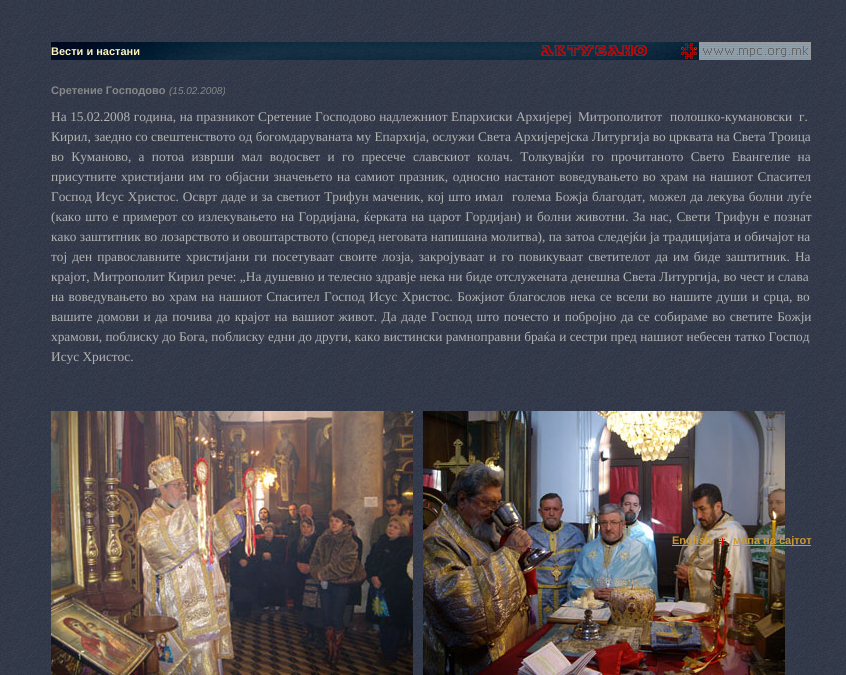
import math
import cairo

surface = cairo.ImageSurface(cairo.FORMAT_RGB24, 846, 675)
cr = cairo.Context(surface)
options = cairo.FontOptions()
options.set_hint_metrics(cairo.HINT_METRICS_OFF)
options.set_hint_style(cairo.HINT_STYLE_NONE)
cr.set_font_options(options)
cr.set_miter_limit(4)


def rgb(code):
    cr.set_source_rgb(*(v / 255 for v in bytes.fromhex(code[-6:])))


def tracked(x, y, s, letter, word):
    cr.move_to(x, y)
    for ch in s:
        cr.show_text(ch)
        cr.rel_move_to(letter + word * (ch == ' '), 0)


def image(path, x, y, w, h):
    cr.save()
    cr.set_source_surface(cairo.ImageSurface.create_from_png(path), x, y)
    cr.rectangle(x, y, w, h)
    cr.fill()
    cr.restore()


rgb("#ffffff")
cr.paint()
image("img/1.png", 0, 0, 846, 675)
image("img/2.png", 51, 42, 648, 18)
image("img/3.png", 541, 45, 106, 11)
image("img/4.png", 681, 43, 16, 16)
image("img/5.png", 699, 42, 112, 18)
image("img/6.png", 51, 411, 362, 264)
image("img/7.png", 423, 411, 362, 264)
rgb("#cc9933")
cr.rectangle(672, 545, 39, 1)
cr.fill()
image("img/8.png", 719, 538, 7, 8)
cr.rectangle(733, 545, 78, 1)
cr.fill()
cr.select_font_face("Liberation Sans", cairo.FONT_SLANT_NORMAL, cairo.FONT_WEIGHT_BOLD)
cr.set_font_size(11)
rgb("#fff4bf")
cr.move_to(51, 55)
cr.show_text("Вести и настани")
rgb("#888888")
cr.move_to(51, 94)
cr.show_text("Сретение Господово")
cr.select_font_face("Liberation Sans", cairo.FONT_SLANT_ITALIC)
cr.set_font_size(10)
cr.move_to(169, 94)
cr.show_text("(15.02.2008)")
cr.select_font_face("Liberation Serif")
cr.set_font_size(13.33)
rgb("#b2b2b2")
tracked(51, 121, "На 15.02.2008 година, на празникот Сретение Господово надлежниот Епархиски Архијереј", 0, 0.25)
for x, y, s in [
    (578, 121, "Митрополитот"),
    (670, 121, "полошко-кумановски"),
    (799, 121, "г."),
    (51, 141, "Кирил, заедно со свештенството од богомдаруваната му Епархија, ослужи Света Архијерејска Литургија во црквата на Света Троица"),
]:
    cr.move_to(x, y)
    cr.show_text(s)
tracked(51, 161, "во Куманово, а потоа изврши мал водосвет и го пресече славскиот колач. Толкувајќи го прочитаното Свето Евангелие на", 0, 4)
tracked(51, 181, "присутните христијани им го објасни значењето на самиот празник, односно настанот воведувањето во храм на нашиот Спасител", 0, 1.25)
tracked(51, 201, "Господ Исус Христос. Осврт даде и за светиот Трифун маченик, кој што имал", 0, 0.6)
tracked(512, 201, "голема Божја благодат, можел да лекува болни луѓе", 0, 0.6)
tracked(51, 221, "(како што е примерот со излекувањето на Гордијана, ќерката на царот Гордијан) и болни животни. За нас, Свети Трифун е познат", 0, 1)
cr.move_to(51, 241)
cr.show_text("како заштитник во лозарството и овоштарството (според неговата напишана молитва), па затоа следејќи ја традицијата и обичајот на")
tracked(51, 261, "тој ден православните христијани ги посетуваат своите лозја, закројуваат и го повикуваат светителот да им биде заштитник. На", 0, 1.8)
cr.move_to(51, 281)
cr.show_text("крајот, Митрополит Кирил рече: „На душевно и телесно здравје нека ни биде отслужената денешна Света Литургија, во чест и слава")
tracked(51, 301, "на воведувањето во храм на нашиот Спасител Господ Исус Христос. Божјиот благослов нека се всели во нашите души и срца, во", 0, 1.1)
tracked(51, 321, "вашите домови и да почива до крајот на вашиот живот. Да даде Господ што почесто и побројно да се собираме во светите Божји", 0, 1.2)
cr.move_to(51, 341)
cr.show_text("храмови, поблиску до Бога, поблиску едни до други, како вистински рамноправни браќа и сестри пред нашиот небесен татко Господ")
cr.move_to(51, 361)
cr.show_text("Исус Христос.")
cr.select_font_face("Liberation Sans", cairo.FONT_SLANT_NORMAL, cairo.FONT_WEIGHT_BOLD)
cr.set_font_size(11)
rgb("#cc9933")
cr.move_to(672, 544)
cr.show_text("English")
cr.move_to(733, 544)
cr.show_text("мапа на сајтот")
surface.write_to_png("page.png")
